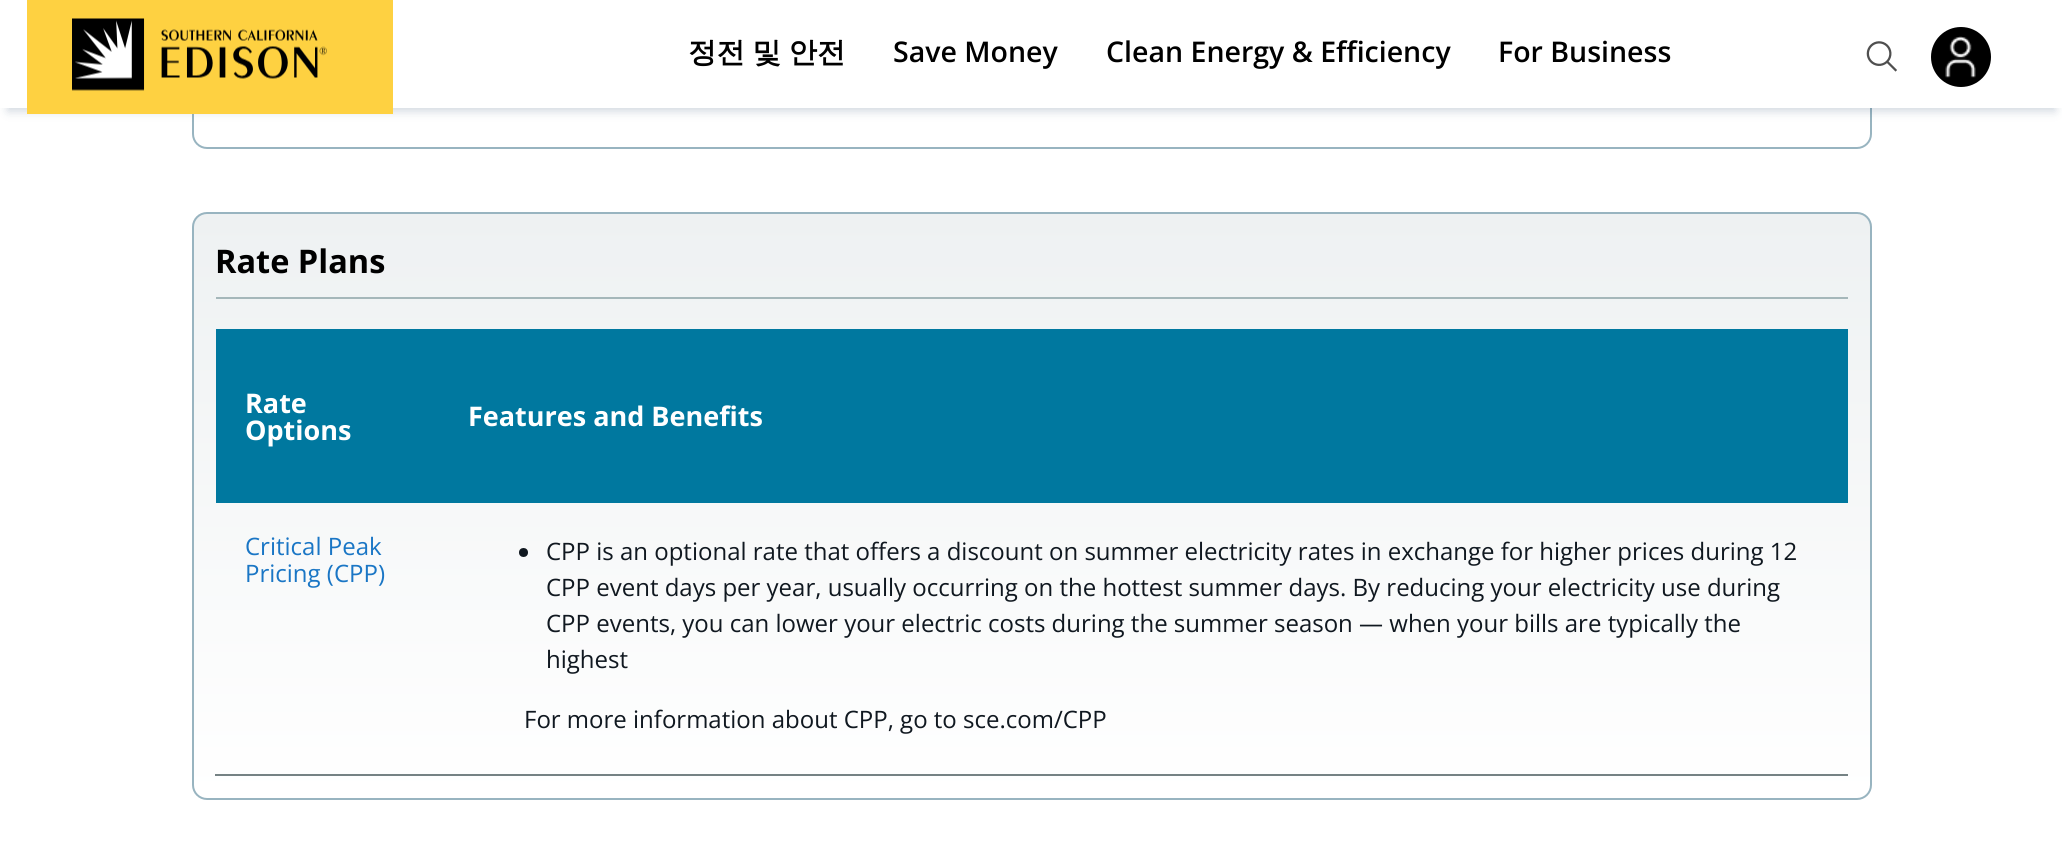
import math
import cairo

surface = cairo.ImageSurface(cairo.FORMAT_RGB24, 2062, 841)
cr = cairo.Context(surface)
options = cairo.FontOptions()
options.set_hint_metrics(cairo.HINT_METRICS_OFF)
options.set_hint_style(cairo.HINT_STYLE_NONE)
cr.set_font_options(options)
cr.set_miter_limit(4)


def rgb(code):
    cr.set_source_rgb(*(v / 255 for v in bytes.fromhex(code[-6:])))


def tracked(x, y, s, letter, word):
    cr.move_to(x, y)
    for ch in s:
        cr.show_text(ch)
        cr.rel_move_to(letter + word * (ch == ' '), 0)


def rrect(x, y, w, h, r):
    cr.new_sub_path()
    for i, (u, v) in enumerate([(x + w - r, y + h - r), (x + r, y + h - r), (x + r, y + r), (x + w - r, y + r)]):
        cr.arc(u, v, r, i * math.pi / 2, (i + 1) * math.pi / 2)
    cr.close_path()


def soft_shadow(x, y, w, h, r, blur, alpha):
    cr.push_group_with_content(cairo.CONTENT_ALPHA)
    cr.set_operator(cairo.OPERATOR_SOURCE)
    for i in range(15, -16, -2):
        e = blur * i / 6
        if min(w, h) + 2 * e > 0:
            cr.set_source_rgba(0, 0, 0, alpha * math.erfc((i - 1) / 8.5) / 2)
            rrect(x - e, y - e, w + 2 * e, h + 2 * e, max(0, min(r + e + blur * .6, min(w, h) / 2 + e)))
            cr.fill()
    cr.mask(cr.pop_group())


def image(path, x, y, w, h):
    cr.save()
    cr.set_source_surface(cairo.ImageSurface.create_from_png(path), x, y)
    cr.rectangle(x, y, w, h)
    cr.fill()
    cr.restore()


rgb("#ffffff")
cr.paint()
rrect(193, -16, 1678, 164, 14)
rgb("#98b4c0")
cr.stroke()
rgb("#0d305b")
soft_shadow(8, 18, 2047, 93, 0, 5, 0.2)
rgb("#ffffff")
cr.rectangle(0, 0, 2062, 108)
cr.fill()
rgb("#fed141")
cr.rectangle(27, 0, 366, 114)
cr.fill()
image("img/1.png", 72, 18, 255, 73)
image("img/2.png", 1866, 41, 31, 31)
rgb("#000000")
cr.arc(1961, 57, 30, 0, 2 * math.pi)
cr.fill()
image("img/3.png", 1945, 36, 31, 42)
cr.save()
rrect(192, 212, 1680, 588, 15)
cr.clip()
gradient = cairo.LinearGradient(1032, 213, 1032, 798)
gradient.add_color_stop_rgba(0, 0.933, 0.945, 0.949, 1)
gradient.add_color_stop_rgba(1, 1, 1, 1, 1)
cr.set_source(gradient)
cr.rectangle(192, 213, 1680, 585)
cr.fill()
cr.restore()
rrect(193, 213, 1678, 586, 14)
rgb("#98b4c0")
cr.stroke()
for x, y, w, h, color in [
    (216, 297, 1632, 2, "#a5b7ba"),
    (216, 329, 1632, 174, "#00789f"),
    (215, 774, 1633, 2, "#758284"),
]:
    rgb(color)
    cr.rectangle(x, y, w, h)
    cr.fill()
rgb("#101820")
cr.arc(523.5, 552.5, 4.5, 0, 2 * math.pi)
cr.fill()
cr.select_font_face("WenQuanYi Zen Hei", cairo.FONT_SLANT_NORMAL, cairo.FONT_WEIGHT_BOLD)
cr.set_font_size(28.5)
rgb("#000000")
tracked(688, 62, "정전 및 안전", 0, -1)
cr.select_font_face("Open Sans SemiBold")
for x, y, s in [
    (893, 62, "Save Money"),
    (1106, 62, "Clean Energy & Efficiency"),
    (1498, 62, "For Business"),
]:
    cr.move_to(x, y)
    cr.show_text(s)
cr.select_font_face("Open Sans", cairo.FONT_SLANT_NORMAL, cairo.FONT_WEIGHT_BOLD)
cr.set_font_size(32.5)
cr.move_to(215, 273)
cr.show_text("Rate Plans")
cr.set_font_size(27)
rgb("#ffffff")
for x, y, s in [
    (245, 413, "Rate"),
    (245, 440, "Options"),
    (468, 426, "Features and Benefits"),
]:
    cr.move_to(x, y)
    cr.show_text(s)
cr.select_font_face("Open Sans")
cr.set_font_size(24)
rgb("#1a76c5")
cr.move_to(245, 555)
cr.show_text("Critical Peak")
cr.move_to(245, 582)
cr.show_text("Pricing (CPP)")
rgb("#101820")
for x, y, s in [
    (546, 560, "CPP is an optional rate that offers a discount on summer electricity rates in exchange for higher prices during 12"),
    (546, 596, "CPP event days per year, usually occurring on the hottest summer days. By reducing your electricity use during"),
    (546, 632, "CPP events, you can lower your electric costs during the summer season — when your bills are typically the"),
    (546, 668, "highest"),
    (524, 728, "For more information about CPP, go to sce.com/CPP"),
]:
    cr.move_to(x, y)
    cr.show_text(s)
surface.write_to_png("page.png")
